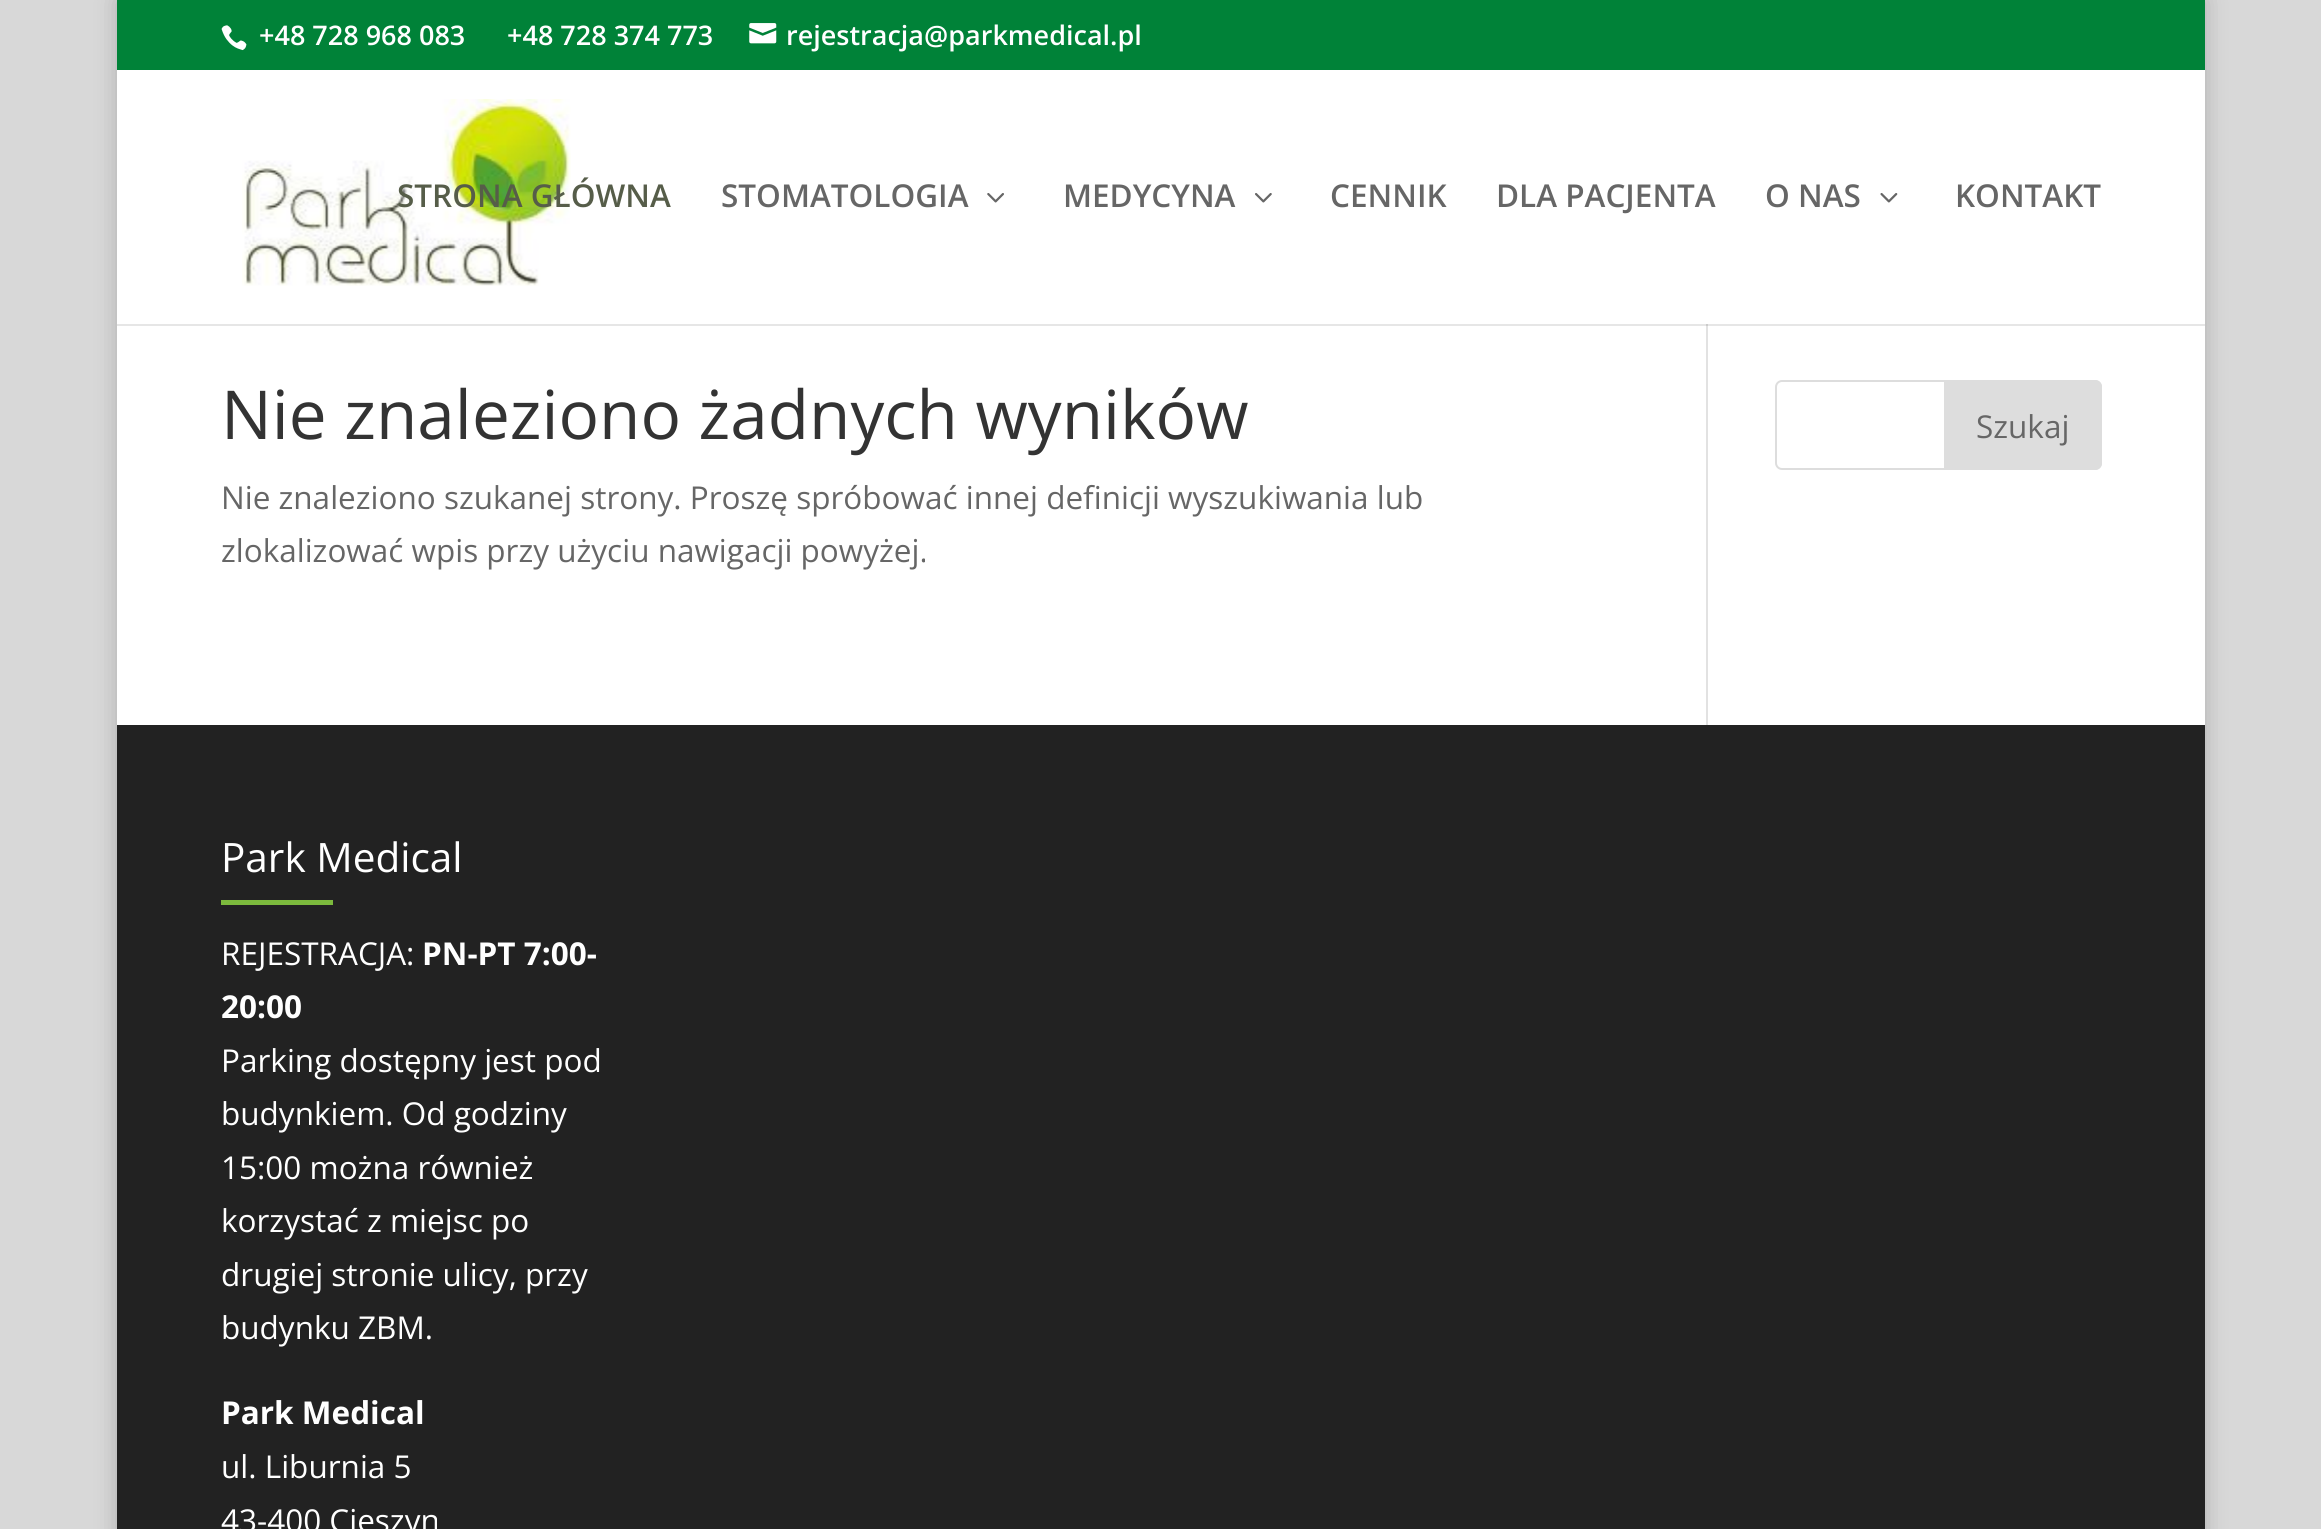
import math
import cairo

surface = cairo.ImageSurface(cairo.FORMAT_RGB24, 2321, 1529)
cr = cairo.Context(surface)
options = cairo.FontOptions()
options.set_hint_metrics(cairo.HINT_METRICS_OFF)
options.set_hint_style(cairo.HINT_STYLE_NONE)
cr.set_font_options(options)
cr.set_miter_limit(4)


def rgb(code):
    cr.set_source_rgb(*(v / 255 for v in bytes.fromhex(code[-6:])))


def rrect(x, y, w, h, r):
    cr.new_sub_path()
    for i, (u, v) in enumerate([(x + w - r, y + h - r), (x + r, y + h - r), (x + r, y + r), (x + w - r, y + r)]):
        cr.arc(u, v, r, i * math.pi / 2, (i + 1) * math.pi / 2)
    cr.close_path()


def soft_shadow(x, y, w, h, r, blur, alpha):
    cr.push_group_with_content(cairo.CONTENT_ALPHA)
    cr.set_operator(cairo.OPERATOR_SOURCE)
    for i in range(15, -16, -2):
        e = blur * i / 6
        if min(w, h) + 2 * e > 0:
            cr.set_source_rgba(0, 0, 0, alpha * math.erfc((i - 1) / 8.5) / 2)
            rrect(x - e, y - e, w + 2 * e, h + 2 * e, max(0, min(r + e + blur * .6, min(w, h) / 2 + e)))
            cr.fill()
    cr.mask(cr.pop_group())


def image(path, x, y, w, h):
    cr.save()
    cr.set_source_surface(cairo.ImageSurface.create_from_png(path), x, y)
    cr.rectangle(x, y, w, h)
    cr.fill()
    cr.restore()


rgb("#d8d8d8")
cr.paint()
rgb("#000000")
soft_shadow(117, 0, 2088, 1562, 0, 11, 0.2)
rgb("#008238")
cr.rectangle(117, 0, 2088, 70)
cr.fill()
image("img/1.png", 221, 25, 26, 26)
image("img/2.png", 749, 23, 28, 21)
rgb("#ffffff")
cr.rectangle(117, 70, 2088, 254)
cr.fill()
image("img/3.png", 242, 99, 329, 187)
image("img/4.png", 987, 193, 17, 10)
image("img/5.png", 1255, 193, 17, 10)
image("img/6.png", 1880, 193, 18, 10)
for x, y, w, h, color in [
    (117, 326, 2088, 399, "#ffffff"),
    (117, 324, 2088, 2, "#e6e6e6"),
    (1706, 326, 2, 399, "#e2e2e2"),
    (1706, 324, 2, 2, "#cbcbcb"),
]:
    rgb(color)
    cr.rectangle(x, y, w, h)
    cr.fill()
rrect(1776, 381, 325, 88, 6)
rgb("#dddddd")
cr.stroke()
cr.new_path()
cr.move_to(1945, 381)
cr.line_to(2095, 381)
cr.curve_to(2098.5, 381, 2101, 383.5, 2101, 387)
cr.line_to(2101, 463)
cr.curve_to(2101, 466.5, 2098.5, 469, 2095, 469)
cr.line_to(1945, 469)
cr.close_path()
cr.fill_preserve()
cr.stroke()
rgb("#222222")
cr.rectangle(117, 725, 2088, 804)
cr.fill()
rgb("#7cba3d")
cr.rectangle(221, 900, 112, 5)
cr.fill()
cr.select_font_face("Open Sans SemiBold")
cr.set_font_size(27)
rgb("#ffffff")
for x, y, s in [
    (259, 45, "+48 728 968 083"),
    (507, 45, "+48 728 374 773"),
    (786, 45, "rejestracja@parkmedical.pl"),
]:
    cr.move_to(x, y)
    cr.show_text(s)
cr.set_font_size(31.5)
rgb("#565d49")
cr.move_to(397, 207)
cr.show_text("STRONA GŁÓWNA")
rgb("#666666")
for x, y, s in [
    (721, 207, "STOMATOLOGIA"),
    (1063, 207, "MEDYCYNA"),
    (1330, 207, "CENNIK"),
    (1496, 207, "DLA PACJENTA"),
    (1765, 207, "O NAS"),
    (1955, 207, "KONTAKT"),
]:
    cr.move_to(x, y)
    cr.show_text(s)
cr.select_font_face("Open Sans")
cr.set_font_size(67.5)
rgb("#333333")
cr.move_to(221, 439)
cr.show_text("Nie znaleziono żadnych wyników")
cr.set_font_size(31.5)
rgb("#666666")
for x, y, s in [
    (221, 509, "Nie znaleziono szukanej strony. Proszę spróbować innej definicji wyszukiwania lub"),
    (221, 562, "zlokalizować wpis przy użyciu nawigacji powyżej."),
    (1976, 438, "Szukaj"),
]:
    cr.move_to(x, y)
    cr.show_text(s)
cr.set_font_size(40.5)
rgb("#ffffff")
cr.move_to(221, 872)
cr.show_text("Park Medical")
cr.set_font_size(31.5)
cr.move_to(221, 965)
cr.show_text("REJESTRACJA:")
cr.select_font_face("Open Sans", cairo.FONT_SLANT_NORMAL, cairo.FONT_WEIGHT_BOLD)
cr.move_to(422, 965)
cr.show_text("PN-PT 7:00-")
cr.move_to(221, 1018)
cr.show_text("20:00")
cr.select_font_face("Open Sans")
for x, y, s in [
    (221, 1072, "Parking dostępny jest pod"),
    (221, 1125, "budynkiem. Od godziny"),
    (221, 1179, "15:00 można również"),
    (221, 1232, "korzystać z miejsc po"),
    (221, 1286, "drugiej stronie ulicy, przy"),
    (221, 1339, "budynku ZBM."),
]:
    cr.move_to(x, y)
    cr.show_text(s)
cr.select_font_face("Open Sans", cairo.FONT_SLANT_NORMAL, cairo.FONT_WEIGHT_BOLD)
cr.move_to(221, 1424)
cr.show_text("Park Medical")
cr.select_font_face("Open Sans")
cr.move_to(221, 1478)
cr.show_text("ul. Liburnia 5")
cr.move_to(221, 1532)
cr.show_text("43-400 Cieszyn")
surface.write_to_png("page.png")
